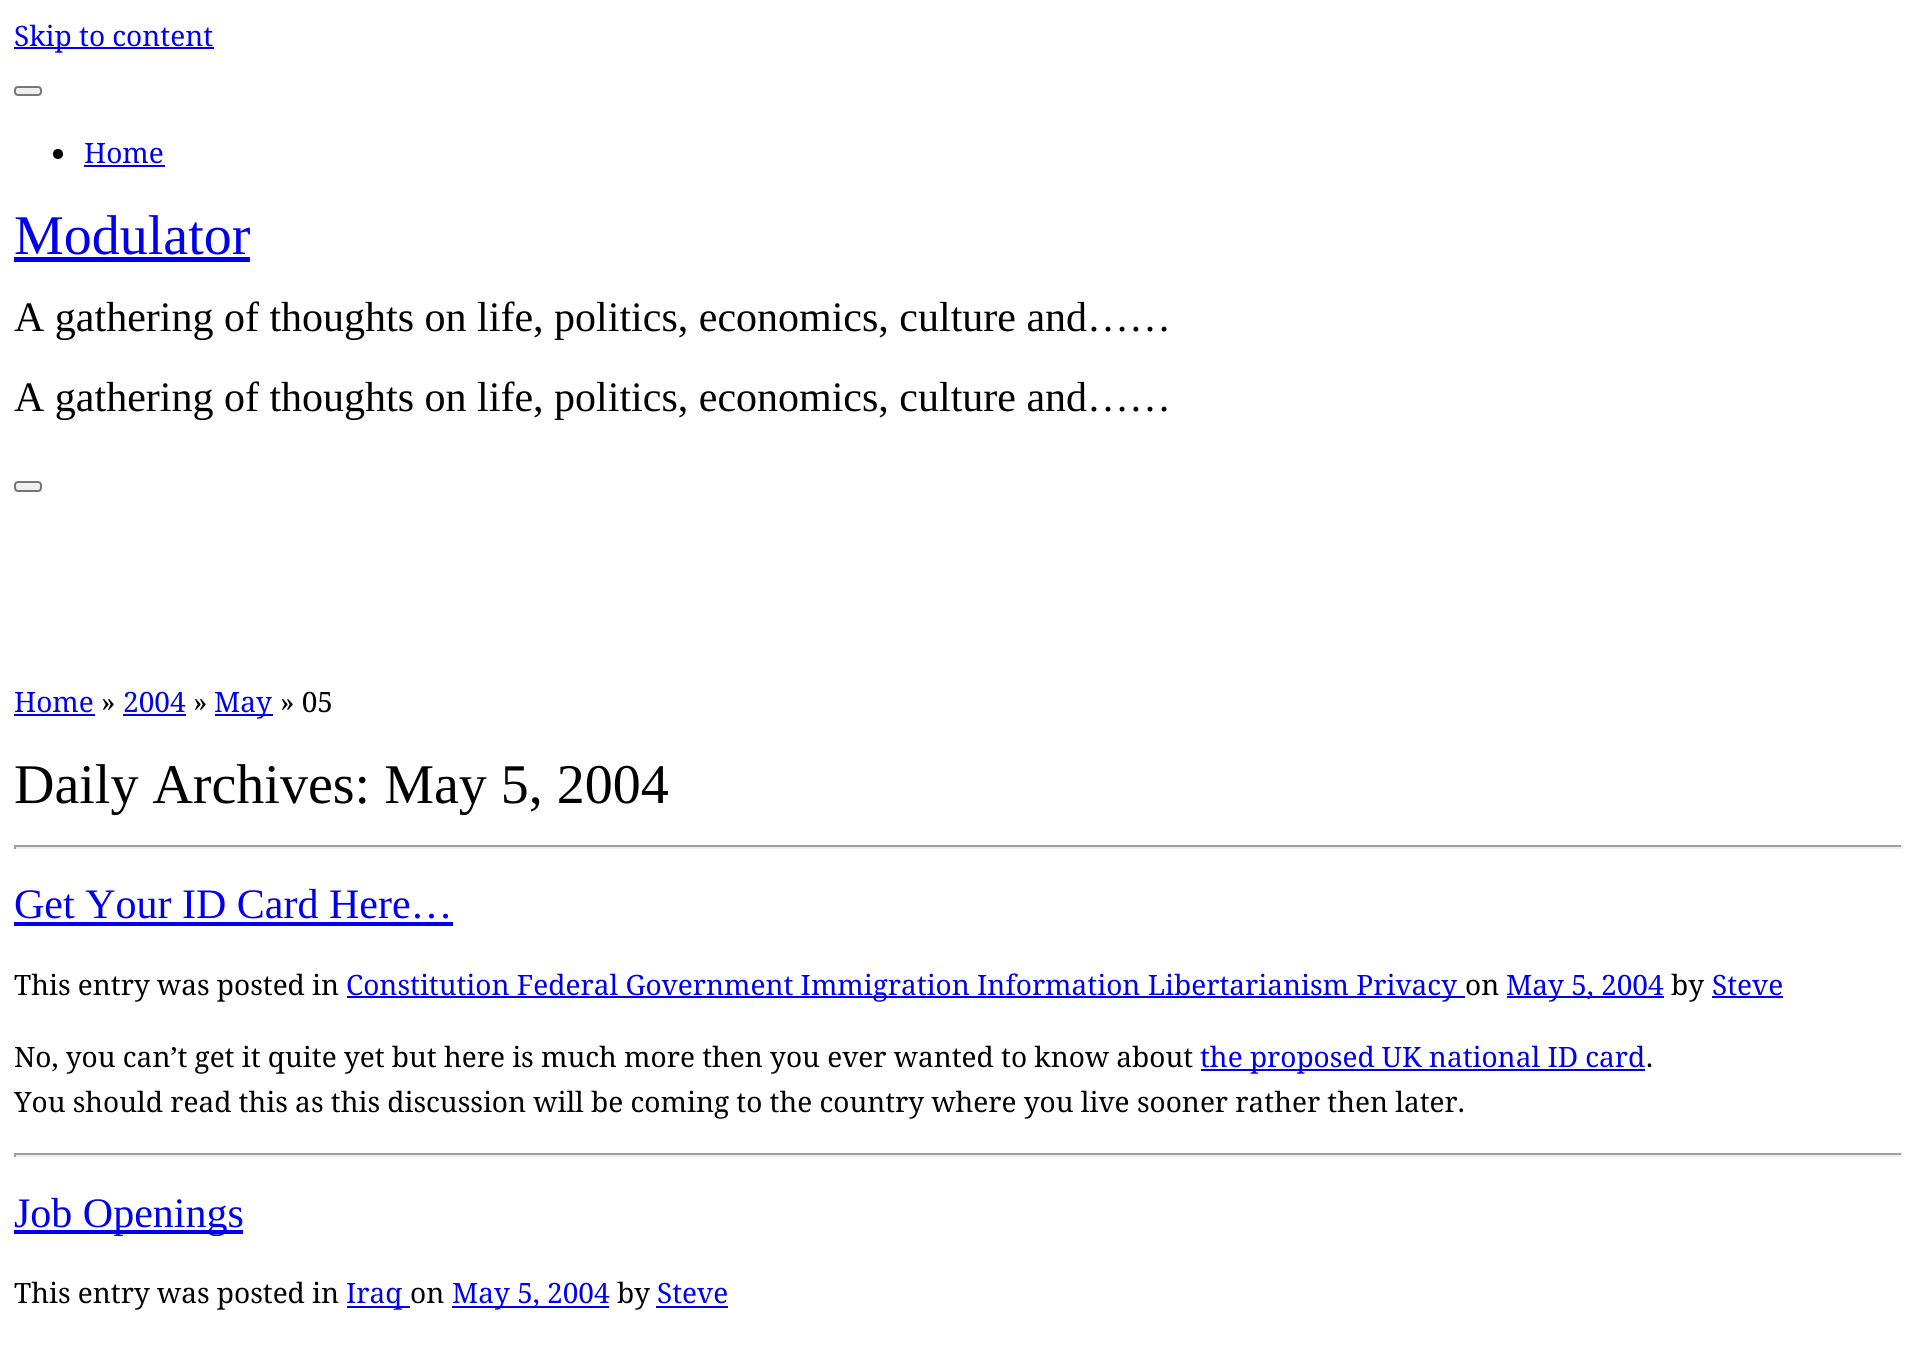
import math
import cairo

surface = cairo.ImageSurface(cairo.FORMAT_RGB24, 1915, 1369)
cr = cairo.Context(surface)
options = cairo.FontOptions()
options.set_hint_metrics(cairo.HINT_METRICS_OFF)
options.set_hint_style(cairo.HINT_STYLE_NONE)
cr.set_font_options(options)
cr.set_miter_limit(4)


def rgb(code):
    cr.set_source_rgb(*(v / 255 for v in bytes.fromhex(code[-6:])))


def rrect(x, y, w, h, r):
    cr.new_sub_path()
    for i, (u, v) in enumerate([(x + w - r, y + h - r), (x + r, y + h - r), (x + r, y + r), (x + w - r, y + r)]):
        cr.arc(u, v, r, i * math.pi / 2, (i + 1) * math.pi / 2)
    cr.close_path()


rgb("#ffffff")
cr.paint()
rgb("#0000ee")
cr.rectangle(14, 47, 200, 2)
cr.fill()
rgb("#efefef")
rrect(15, 87, 26, 8, 3)
cr.fill_preserve()
rgb("#767676")
cr.stroke()
rgb("#000000")
cr.arc(58, 154, 5, 0, 2 * math.pi)
cr.fill()
rgb("#0000ee")
cr.rectangle(84, 165, 81, 2)
cr.fill()
cr.rectangle(14, 257, 236, 5)
cr.fill()
rgb("#efefef")
rrect(15, 482, 26, 9, 3)
cr.fill_preserve()
rgb("#767676")
cr.stroke()
for x, y, w, h, color in [
    (14, 714, 81, 2, "#0000ee"),
    (123, 714, 63, 2, "#0000ee"),
    (215, 714, 58, 2, "#0000ee"),
    (14, 845, 1888, 2, "#9f9f9f"),
    (1901, 845, 2, 4, "#eeeeee"),
    (14, 847, 1888, 2, "#eeeeee"),
    (14, 845, 2, 4, "#9f9f9f"),
    (14, 922, 439, 4, "#0000ee"),
    (347, 996, 1118, 2, "#0000ee"),
    (1507, 996, 157, 2, "#0000ee"),
    (1712, 996, 71, 2, "#0000ee"),
    (1201, 1069, 444, 2, "#0000ee"),
    (14, 1153, 1888, 2, "#9f9f9f"),
    (1901, 1153, 2, 4, "#eeeeee"),
    (14, 1155, 1888, 2, "#eeeeee"),
    (14, 1153, 2, 4, "#9f9f9f"),
    (14, 1230, 229, 4, "#0000ee"),
    (347, 1306, 63, 2, "#0000ee"),
    (452, 1306, 157, 2, "#0000ee"),
    (656, 1306, 72, 2, "#0000ee"),
]:
    rgb(color)
    cr.rectangle(x, y, w, h)
    cr.fill()
cr.select_font_face("Noto Serif")
cr.set_font_size(28)
cr.move_to(14, 46)
cr.show_text("Skip to content")
cr.move_to(84, 163)
cr.show_text("Home")
cr.select_font_face("Liberation Serif")
cr.set_font_size(56)
cr.move_to(14, 254)
cr.show_text("Modulator")
cr.set_font_size(42)
rgb("#000000")
cr.move_to(14, 331)
cr.show_text("A gathering of thoughts on life, politics, economics, culture and……")
cr.move_to(14, 411)
cr.show_text("A gathering of thoughts on life, politics, economics, culture and……")
cr.select_font_face("Noto Serif")
cr.set_font_size(28)
rgb("#0000ee")
cr.move_to(14, 712)
cr.show_text("Home")
rgb("#000000")
cr.move_to(101, 712)
cr.show_text("»")
rgb("#0000ee")
cr.move_to(123, 712)
cr.show_text("2004")
rgb("#000000")
cr.move_to(193, 712)
cr.show_text("»")
rgb("#0000ee")
cr.move_to(214, 712)
cr.show_text("May")
rgb("#000000")
cr.move_to(280, 712)
cr.show_text("» 05")
cr.select_font_face("Liberation Serif")
cr.set_font_size(56)
cr.move_to(14, 803)
cr.show_text("Daily Archives: May 5, 2004")
cr.set_font_size(42)
rgb("#0000ee")
cr.move_to(14, 918)
cr.show_text("Get Your ID Card Here…")
cr.select_font_face("Noto Serif")
cr.set_font_size(28)
rgb("#000000")
cr.move_to(14, 995)
cr.show_text("This entry was posted in")
rgb("#0000ee")
cr.move_to(346, 995)
cr.show_text("Constitution Federal Government Immigration Information Libertarianism Privacy")
rgb("#000000")
cr.move_to(1465, 995)
cr.show_text("on")
rgb("#0000ee")
cr.move_to(1506, 995)
cr.show_text("May 5, 2004")
rgb("#000000")
cr.move_to(1671, 995)
cr.show_text("by")
rgb("#0000ee")
cr.move_to(1712, 995)
cr.show_text("Steve")
rgb("#000000")
cr.move_to(14, 1067)
cr.show_text("No, you can’t get it quite yet but here is much more then you ever wanted to know about")
rgb("#0000ee")
cr.move_to(1200, 1067)
cr.show_text("the proposed UK national ID card")
rgb("#000000")
cr.move_to(1646, 1067)
cr.show_text(".")
cr.move_to(14, 1112)
cr.show_text("You should read this as this discussion will be coming to the country where you live sooner rather then later.")
cr.select_font_face("Liberation Serif")
cr.set_font_size(42)
rgb("#0000ee")
cr.move_to(14, 1227)
cr.show_text("Job Openings")
cr.select_font_face("Noto Serif")
cr.set_font_size(28)
rgb("#000000")
cr.move_to(14, 1303)
cr.show_text("This entry was posted in")
rgb("#0000ee")
cr.move_to(346, 1303)
cr.show_text("Iraq")
rgb("#000000")
cr.move_to(410, 1303)
cr.show_text("on")
rgb("#0000ee")
cr.move_to(452, 1303)
cr.show_text("May 5, 2004")
rgb("#000000")
cr.move_to(617, 1303)
cr.show_text("by")
rgb("#0000ee")
cr.move_to(657, 1303)
cr.show_text("Steve")
surface.write_to_png("page.png")
